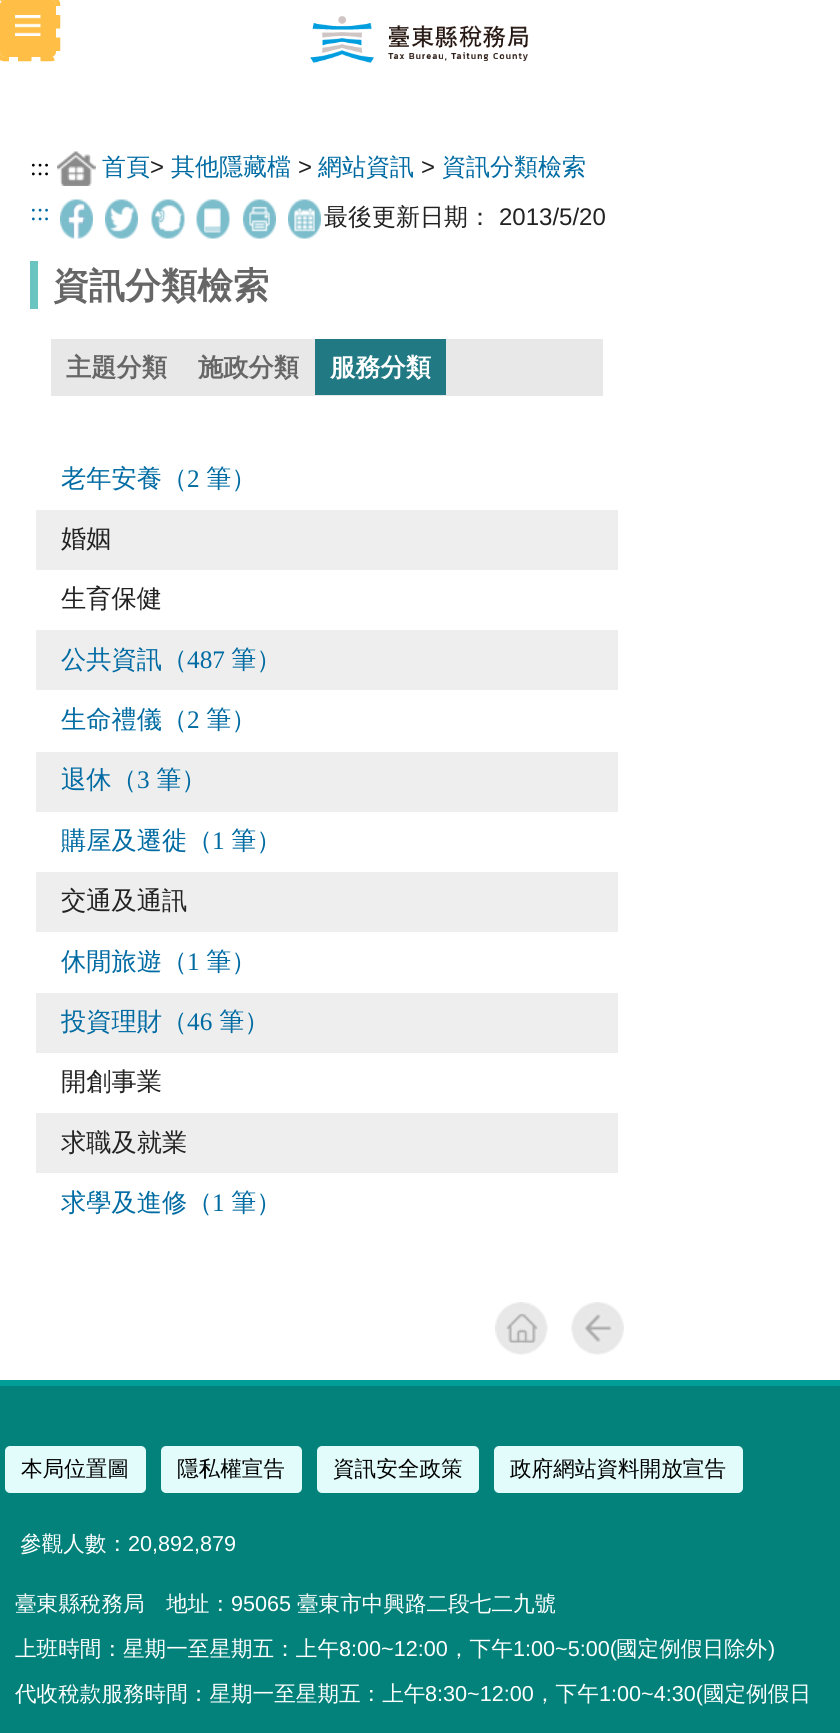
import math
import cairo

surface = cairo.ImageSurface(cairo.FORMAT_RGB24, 840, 1733)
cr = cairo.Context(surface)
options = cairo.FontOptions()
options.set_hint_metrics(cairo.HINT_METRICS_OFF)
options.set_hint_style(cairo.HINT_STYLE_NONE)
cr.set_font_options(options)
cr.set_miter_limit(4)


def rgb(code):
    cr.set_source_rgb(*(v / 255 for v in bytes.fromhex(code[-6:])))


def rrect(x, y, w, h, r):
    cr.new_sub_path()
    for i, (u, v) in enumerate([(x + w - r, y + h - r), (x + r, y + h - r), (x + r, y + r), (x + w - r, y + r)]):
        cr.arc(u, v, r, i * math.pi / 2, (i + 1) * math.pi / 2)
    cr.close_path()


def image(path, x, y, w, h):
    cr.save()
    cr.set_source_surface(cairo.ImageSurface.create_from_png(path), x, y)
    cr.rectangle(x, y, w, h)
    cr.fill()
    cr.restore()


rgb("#ffffff")
cr.paint()
rgb("#ffbf47")
rrect(1, 1, 54, 55, 4)
cr.fill_preserve()
cr.stroke()
image("img/1.png", 15, 15, 26, 21)
cr.new_path()
cr.move_to(4.5, -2)
cr.line_to(51, -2)
cr.curve_to(54.5, -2, 58, 1, 58, 4.5)
cr.line_to(58, 52.5)
cr.curve_to(58, 56, 54.5, 59, 51, 59)
cr.line_to(4.5, 59)
cr.curve_to(1, 59, -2, 56, -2, 52.5)
cr.line_to(-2, 4.5)
cr.curve_to(-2, 1, 1, -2, 4.5, -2)
cr.close_path()
cr.set_line_width(4.5)
cr.set_dash([13.5, 9])
cr.stroke()
image("img/2.png", 310, 15, 219, 48)
image("img/3.png", 57, 151, 39, 35)
image("img/4.png", 60, 199, 33, 40)
image("img/5.png", 105, 199, 33, 40)
image("img/6.png", 151, 199, 34, 40)
image("img/7.png", 196, 199, 34, 40)
image("img/8.png", 243, 199, 33, 40)
image("img/9.png", 288, 199, 33, 40)
for x, y, w, h, color in [
    (30, 261, 8, 48, "#6ac5c0"),
    (51, 339, 552, 57, "#e8e8e8"),
    (315, 339, 131, 56, "#217983"),
    (36, 510, 582, 60, "#eeeeee"),
    (36, 630, 582, 60, "#eeeeee"),
    (36, 752, 582, 60, "#eeeeee"),
    (36, 872, 582, 60, "#eeeeee"),
    (36, 993, 582, 60, "#eeeeee"),
    (36, 1113, 582, 60, "#eeeeee"),
]:
    rgb(color)
    cr.rectangle(x, y, w, h)
    cr.fill()
image("img/10.png", 495, 1302, 53, 53)
image("img/11.png", 571, 1302, 53, 53)
rgb("#009e96")
cr.rectangle(0, 1380, 840, 6)
cr.fill()
rgb("#02827b")
cr.rectangle(0, 1386, 840, 347)
cr.fill()
rgb("#e2fcfb")
rrect(6, 1447, 139, 45, 4)
cr.fill_preserve()
cr.set_line_width(2)
cr.set_dash([])
cr.stroke()
rrect(162, 1447, 139, 45, 4)
cr.fill_preserve()
cr.stroke()
rrect(318, 1447, 160, 45, 4)
cr.fill_preserve()
cr.stroke()
rrect(495, 1447, 247, 45, 4)
cr.fill_preserve()
cr.stroke()
cr.select_font_face("Liberation Serif")
cr.set_font_size(24)
rgb("#000000")
cr.move_to(30, 175)
cr.show_text(":::")
cr.select_font_face("WenQuanYi Zen Hei Medium")
rgb("#006ba2")
cr.move_to(102, 175)
cr.show_text("首頁")
cr.select_font_face("Liberation Sans")
rgb("#222222")
cr.move_to(150, 175)
cr.show_text(">")
cr.select_font_face("WenQuanYi Zen Hei Medium")
rgb("#006ba2")
cr.move_to(171, 175)
cr.show_text("其他隱藏檔")
cr.select_font_face("Liberation Sans")
rgb("#222222")
cr.move_to(298, 175)
cr.show_text(">")
cr.select_font_face("WenQuanYi Zen Hei Medium")
rgb("#006ba2")
cr.move_to(318, 175)
cr.show_text("網站資訊")
cr.select_font_face("Liberation Sans")
rgb("#222222")
cr.move_to(421, 175)
cr.show_text(">")
cr.select_font_face("WenQuanYi Zen Hei Medium")
rgb("#006ba2")
cr.move_to(442, 175)
cr.show_text("資訊分類檢索")
cr.select_font_face("Liberation Serif")
cr.move_to(30, 220)
cr.show_text(":::")
cr.select_font_face("WenQuanYi Zen Hei Medium")
rgb("#222222")
cr.move_to(324, 225)
cr.show_text("最後更新日期：")
cr.select_font_face("Liberation Sans")
cr.move_to(499, 225)
cr.show_text("2013/5/20")
cr.select_font_face("WenQuanYi Zen Hei", cairo.FONT_SLANT_NORMAL, cairo.FONT_WEIGHT_BOLD)
cr.set_font_size(36)
rgb("#666666")
cr.move_to(53, 298)
cr.show_text("資訊分類檢索")
cr.set_font_size(25.25)
cr.move_to(66, 376)
cr.show_text("主題分類")
cr.move_to(198, 376)
cr.show_text("施政分類")
rgb("#ffffff")
cr.move_to(330, 376)
cr.show_text("服務分類")
cr.select_font_face("WenQuanYi Zen Hei Medium")
rgb("#006ba2")
cr.move_to(61, 487)
cr.show_text("老年安養（")
cr.select_font_face("Liberation Serif")
cr.move_to(187, 487)
cr.show_text("2")
cr.select_font_face("WenQuanYi Zen Hei Medium")
cr.move_to(206, 487)
cr.show_text("筆）")
rgb("#222222")
cr.move_to(61, 547)
cr.show_text("婚姻")
cr.move_to(61, 607)
cr.show_text("生育保健")
rgb("#006ba2")
cr.move_to(61, 668)
cr.show_text("公共資訊（")
cr.select_font_face("Liberation Serif")
cr.move_to(187, 668)
cr.show_text("487")
cr.select_font_face("WenQuanYi Zen Hei Medium")
cr.move_to(231, 668)
cr.show_text("筆）")
cr.move_to(61, 728)
cr.show_text("生命禮儀（")
cr.select_font_face("Liberation Serif")
cr.move_to(187, 728)
cr.show_text("2")
cr.select_font_face("WenQuanYi Zen Hei Medium")
cr.move_to(206, 728)
cr.show_text("筆）")
cr.move_to(61, 788)
cr.show_text("退休（")
cr.select_font_face("Liberation Serif")
cr.move_to(137, 788)
cr.show_text("3")
cr.select_font_face("WenQuanYi Zen Hei Medium")
cr.move_to(156, 788)
cr.show_text("筆）")
cr.move_to(61, 849)
cr.show_text("購屋及遷徙（")
cr.select_font_face("Liberation Serif")
cr.move_to(212, 849)
cr.show_text("1")
cr.select_font_face("WenQuanYi Zen Hei Medium")
cr.move_to(231, 849)
cr.show_text("筆）")
rgb("#222222")
cr.move_to(61, 909)
cr.show_text("交通及通訊")
rgb("#006ba2")
cr.move_to(61, 970)
cr.show_text("休閒旅遊（")
cr.select_font_face("Liberation Serif")
cr.move_to(187, 970)
cr.show_text("1")
cr.select_font_face("WenQuanYi Zen Hei Medium")
cr.move_to(206, 970)
cr.show_text("筆）")
cr.move_to(61, 1030)
cr.show_text("投資理財（")
cr.select_font_face("Liberation Serif")
cr.move_to(187, 1030)
cr.show_text("46")
cr.select_font_face("WenQuanYi Zen Hei Medium")
cr.move_to(219, 1030)
cr.show_text("筆）")
rgb("#222222")
cr.move_to(61, 1090)
cr.show_text("開創事業")
cr.move_to(61, 1151)
cr.show_text("求職及就業")
rgb("#006ba2")
cr.move_to(61, 1211)
cr.show_text("求學及進修（")
cr.select_font_face("Liberation Serif")
cr.move_to(212, 1211)
cr.show_text("1")
cr.select_font_face("WenQuanYi Zen Hei Medium")
cr.move_to(231, 1211)
cr.show_text("筆）")
cr.set_font_size(21.6)
rgb("#000000")
for x, y, s in [
    (21, 1476, "本局位置圖"),
    (177, 1476, "隱私權宣告"),
    (333, 1476, "資訊安全政策"),
    (510, 1476, "政府網站資料開放宣告"),
]:
    cr.move_to(x, y)
    cr.show_text(s)
rgb("#ffffff")
cr.move_to(20, 1551)
cr.show_text("參觀人數：")
cr.select_font_face("Liberation Sans")
cr.move_to(128, 1551)
cr.show_text("20,892,879")
cr.select_font_face("WenQuanYi Zen Hei Medium")
cr.move_to(15, 1611)
cr.show_text("臺東縣稅務局　地址：")
cr.select_font_face("Liberation Sans")
cr.move_to(231, 1611)
cr.show_text("95065")
cr.select_font_face("WenQuanYi Zen Hei Medium")
cr.move_to(297, 1611)
cr.show_text("臺東市中興路二段七二九號")
cr.move_to(15, 1656)
cr.show_text("上班時間：星期一至星期五：上午")
cr.select_font_face("Liberation Sans")
cr.move_to(339, 1656)
cr.show_text("8:00~12:00")
cr.select_font_face("WenQuanYi Zen Hei Medium")
cr.move_to(448, 1656)
cr.show_text("，下午")
cr.select_font_face("Liberation Sans")
cr.move_to(513, 1656)
cr.show_text("1:00~5:00(")
cr.select_font_face("WenQuanYi Zen Hei Medium")
cr.move_to(616, 1656)
cr.show_text("國定例假日除外")
cr.select_font_face("Liberation Sans")
cr.move_to(768, 1656)
cr.show_text(")")
cr.select_font_face("WenQuanYi Zen Hei Medium")
cr.move_to(15, 1701)
cr.show_text("代收稅款服務時間：星期一至星期五：上午")
cr.select_font_face("Liberation Sans")
cr.move_to(425, 1701)
cr.show_text("8:30~12:00")
cr.select_font_face("WenQuanYi Zen Hei Medium")
cr.move_to(534, 1701)
cr.show_text("，下午")
cr.select_font_face("Liberation Sans")
cr.move_to(599, 1701)
cr.show_text("1:00~4:30(")
cr.select_font_face("WenQuanYi Zen Hei Medium")
cr.move_to(703, 1701)
cr.show_text("國定例假日")
surface.write_to_png("page.png")
